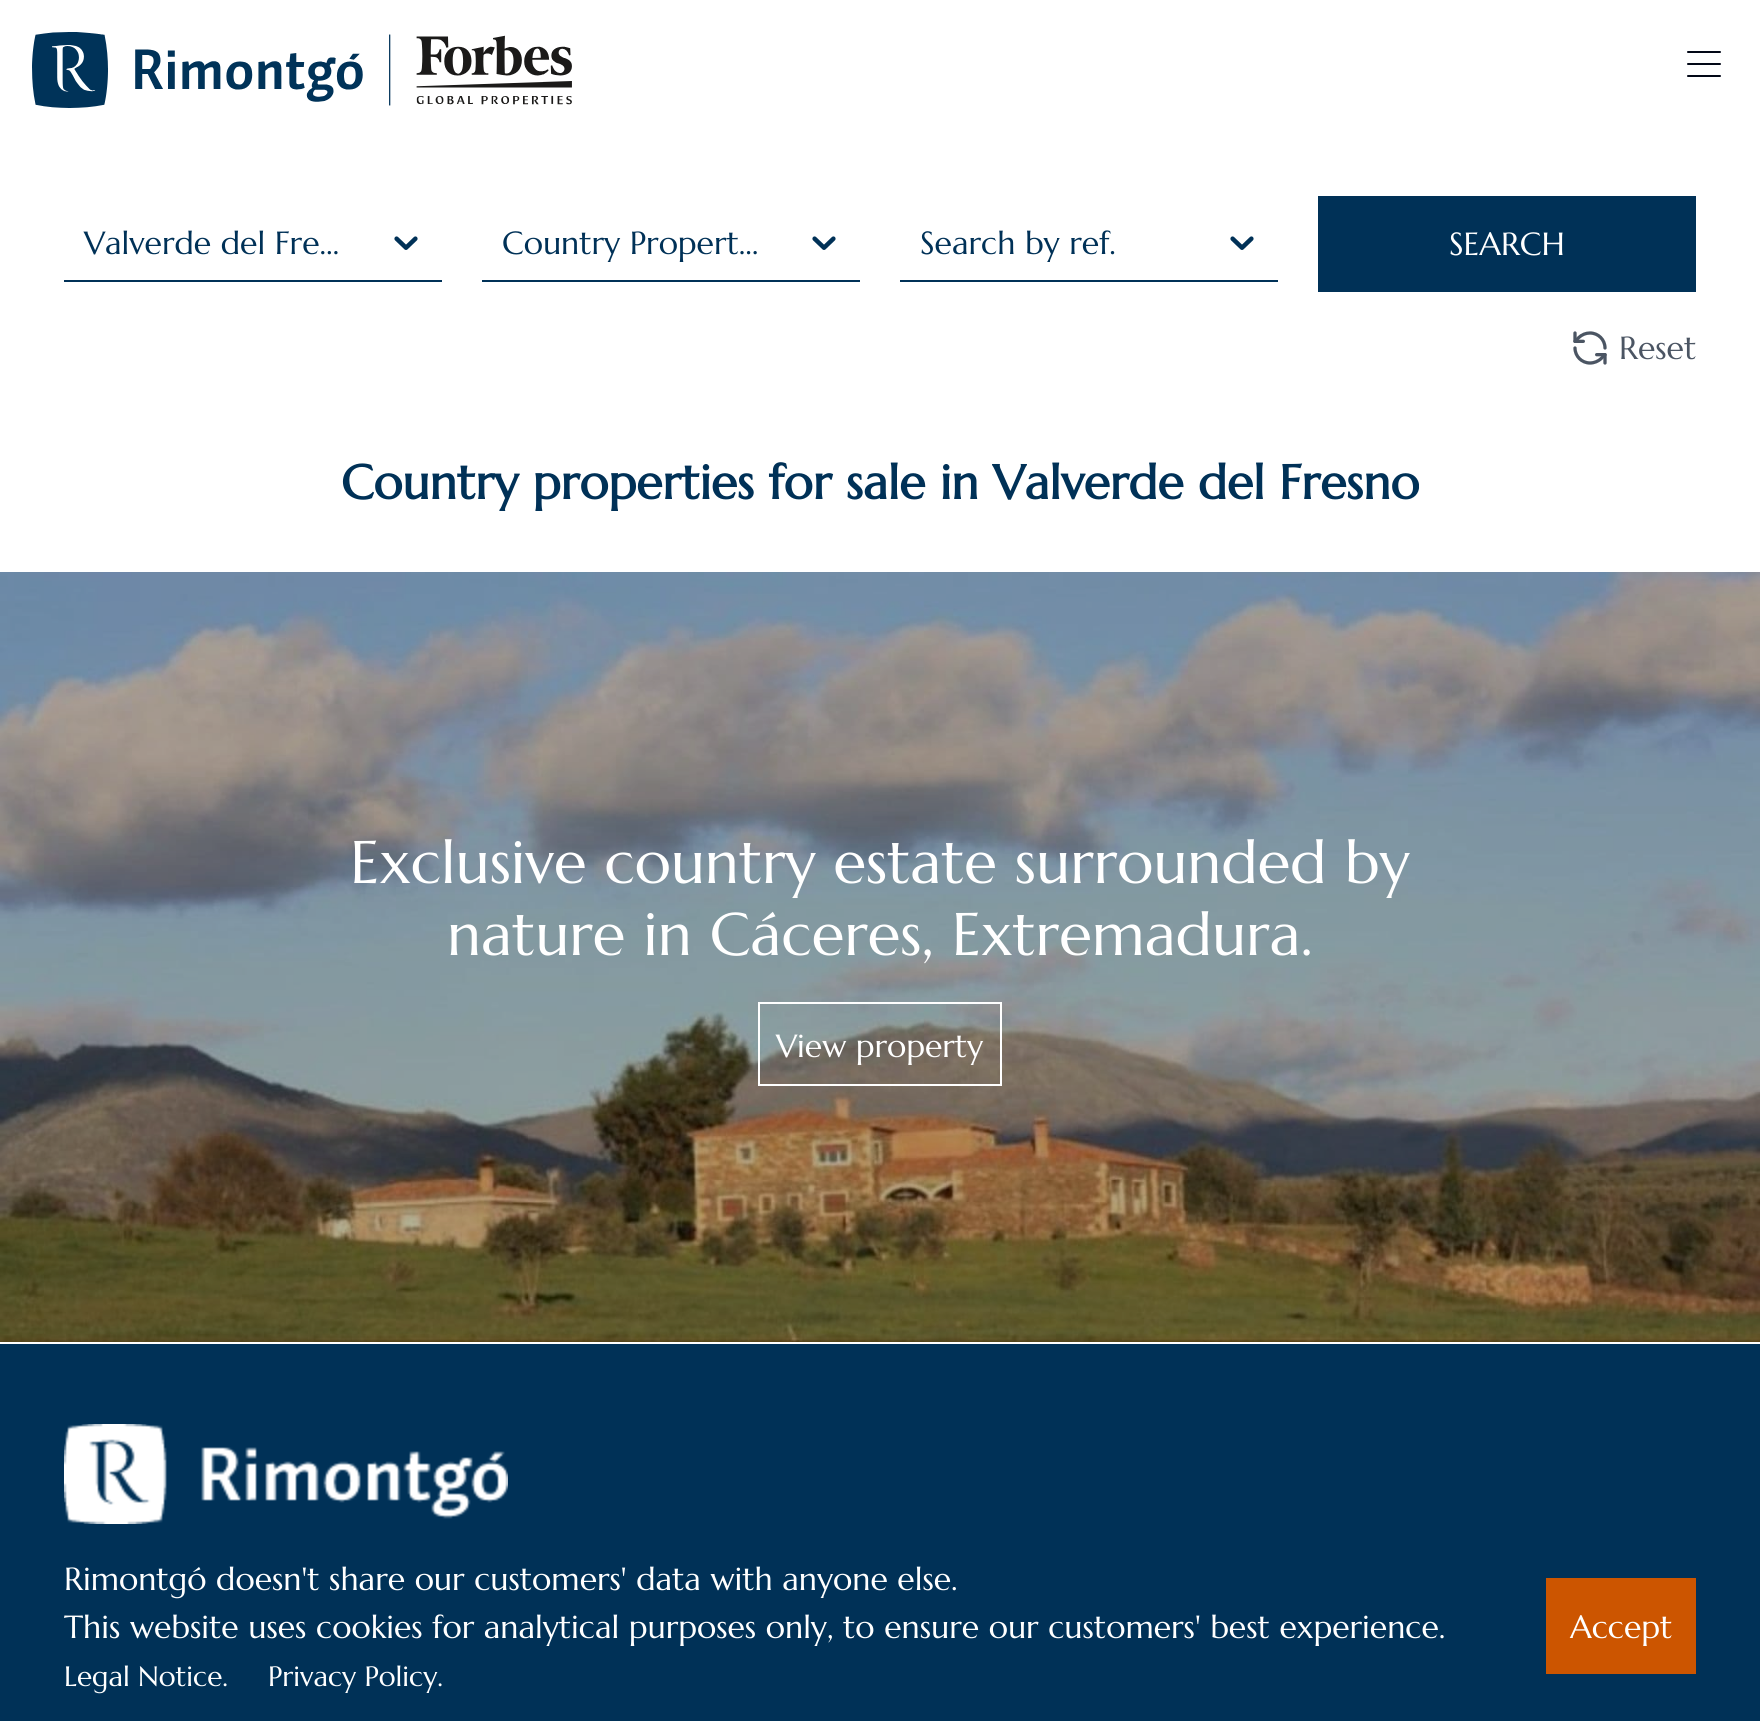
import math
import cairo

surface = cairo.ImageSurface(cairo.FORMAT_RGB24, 1760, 1721)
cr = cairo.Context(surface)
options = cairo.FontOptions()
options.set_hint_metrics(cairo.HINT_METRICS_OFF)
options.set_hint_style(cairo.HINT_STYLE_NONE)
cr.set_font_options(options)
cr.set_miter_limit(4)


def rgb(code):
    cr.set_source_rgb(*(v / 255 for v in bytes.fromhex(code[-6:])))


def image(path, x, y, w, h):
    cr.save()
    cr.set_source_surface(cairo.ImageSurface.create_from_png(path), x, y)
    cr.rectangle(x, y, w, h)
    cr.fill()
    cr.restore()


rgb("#ffffff")
cr.paint()
image("img/1.png", 32, 32, 540, 76)
cr.new_path()
cr.move_to(1688, 64)
cr.line_to(1720, 64)
cr.move_to(1688, 52)
cr.line_to(1720, 52)
cr.move_to(1688, 76)
cr.line_to(1720, 76)
rgb("#020817")
cr.set_line_cap(cairo.LINE_CAP_ROUND)
cr.set_line_join(cairo.LINE_JOIN_ROUND)
cr.stroke()
rgb("#003157")
cr.rectangle(64, 280, 378, 2)
cr.fill()
image("img/2.png", 394, 236, 24, 14)
cr.rectangle(482, 280, 378, 2)
cr.fill()
image("img/2.png", 812, 236, 24, 14)
cr.rectangle(900, 280, 378, 2)
cr.fill()
image("img/2.png", 1230, 236, 24, 14)
cr.rectangle(1318, 196, 378, 96)
cr.fill()
image("img/3.png", 1573, 331, 34, 34)
image("img/4.png", 0, 572, 1760, 770)
cr.rectangle(759, 1003, 242, 82)
rgb("#ffffff")
cr.set_line_cap(cairo.LINE_CAP_BUTT)
cr.set_line_join(cairo.LINE_JOIN_MITER)
cr.stroke()
rgb("#003157")
cr.rectangle(0, 1344, 1760, 377)
cr.fill()
image("img/5.png", 64, 1424, 444, 100)
rgb("#cc5500")
cr.rectangle(1546, 1578, 150, 96)
cr.fill()
cr.select_font_face("Marcellus")
cr.set_font_size(32)
rgb("#003157")
for x, y, s in [
    (84, 254, "Valverde del Fre…"),
    (502, 254, "Country Propert…"),
    (920, 254, "Search by ref."),
]:
    cr.move_to(x, y)
    cr.show_text(s)
rgb("#ffffff")
cr.move_to(1449, 255)
cr.show_text("SEARCH")
rgb("#4b5563")
cr.move_to(1619, 359)
cr.show_text("Reset")
cr.select_font_face("Marcellus", cairo.FONT_SLANT_NORMAL, cairo.FONT_WEIGHT_BOLD)
cr.set_font_size(48)
rgb("#003157")
cr.move_to(341, 499)
cr.show_text("Country properties for sale in Valverde del Fresno")
cr.select_font_face("Marcellus")
cr.set_font_size(60)
rgb("#ffffff")
cr.move_to(350, 883)
cr.show_text("Exclusive country estate surrounded by")
cr.move_to(447, 955)
cr.show_text("nature in Cáceres, Extremadura.")
cr.set_font_size(32)
for x, y, s in [
    (776, 1057, "View property"),
    (64, 1590, "Rimontgó doesn't share our customers' data with anyone else."),
    (64, 1638, "This website uses cookies for analytical purposes only, to ensure our customers' best experience."),
]:
    cr.move_to(x, y)
    cr.show_text(s)
cr.set_font_size(28)
cr.move_to(64, 1686)
cr.show_text("Legal Notice.")
cr.move_to(268, 1686)
cr.show_text("Privacy Policy.")
cr.set_font_size(32)
cr.move_to(1570, 1638)
cr.show_text("Accept")
surface.write_to_png("page.png")
